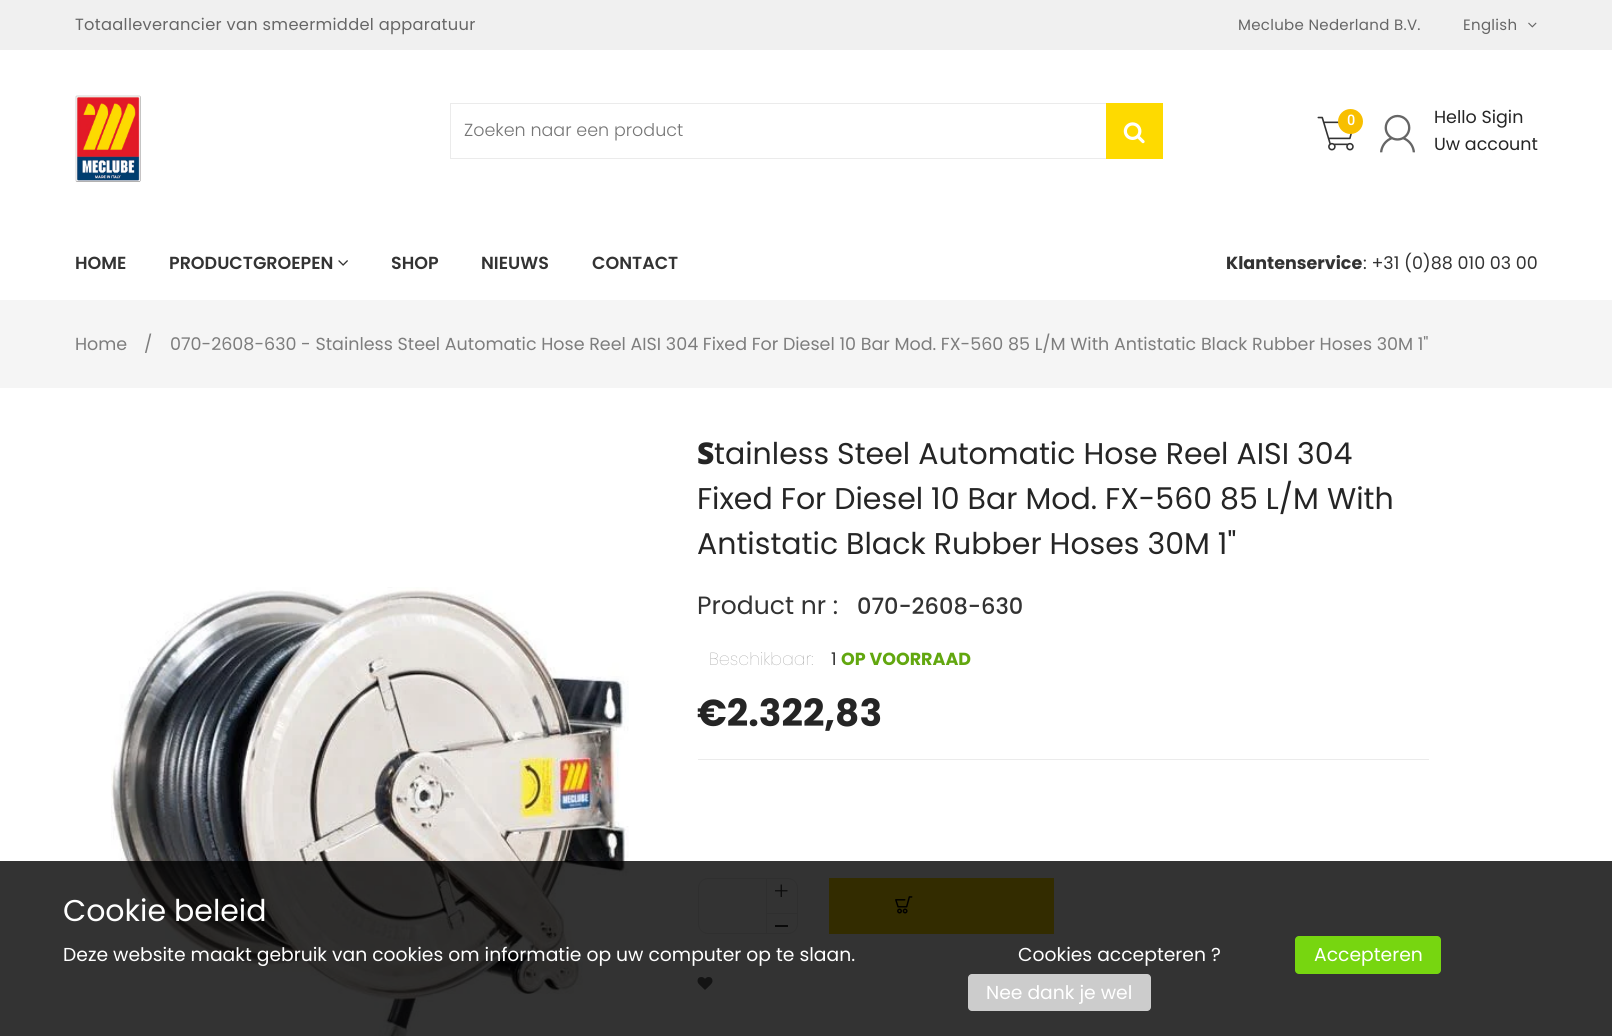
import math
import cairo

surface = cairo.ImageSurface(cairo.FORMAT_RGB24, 1612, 1036)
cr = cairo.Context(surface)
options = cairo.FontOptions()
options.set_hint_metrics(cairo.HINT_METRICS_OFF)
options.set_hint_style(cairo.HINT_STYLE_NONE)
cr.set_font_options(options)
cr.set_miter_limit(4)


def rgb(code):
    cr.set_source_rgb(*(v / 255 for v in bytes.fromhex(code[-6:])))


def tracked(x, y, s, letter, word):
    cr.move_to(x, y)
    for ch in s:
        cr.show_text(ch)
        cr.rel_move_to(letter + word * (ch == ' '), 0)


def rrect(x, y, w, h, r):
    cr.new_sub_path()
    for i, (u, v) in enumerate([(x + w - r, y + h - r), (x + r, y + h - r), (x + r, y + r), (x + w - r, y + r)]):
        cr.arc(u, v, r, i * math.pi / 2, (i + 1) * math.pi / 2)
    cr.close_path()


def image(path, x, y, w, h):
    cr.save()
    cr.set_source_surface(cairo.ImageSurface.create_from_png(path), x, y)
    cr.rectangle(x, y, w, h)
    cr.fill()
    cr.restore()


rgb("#ffffff")
cr.paint()
rgb("#f0f0f0")
cr.rectangle(0, 0, 1612, 50)
cr.fill()
image("img/1.png", 1528, 22, 9, 6)
image("img/2.png", 75, 95, 66, 87)
cr.rectangle(450.5, 103.5, 712, 55)
rgb("#ebebeb")
cr.set_line_width(1)
cr.stroke()
rgb("#feda00")
cr.rectangle(1106, 103, 57, 56)
cr.fill()
image("img/3.png", 1123, 122, 22, 22)
image("img/4.png", 1317, 116, 37, 35)
rgb("#f8bf00")
cr.arc(1350.5, 121.5, 12.5, 0, 2 * math.pi)
cr.fill()
image("img/5.png", 1380, 114, 35, 39)
image("img/6.png", 338, 260, 10, 6)
rgb("#f5f5f5")
cr.rectangle(0, 300, 1612, 88)
cr.fill()
image("img/7.png", 111, 587, 518, 449)
rgb("#ebebeb")
cr.rectangle(698, 759, 731, 1)
cr.fill()
rrect(698.5, 878.5, 99, 55, 9.5)
cr.stroke()
cr.rectangle(766, 878, 1, 56)
cr.fill()
image("img/8.png", 775, 884, 13, 13)
for x, y, w, h, color in [
    (766, 913, 32, 1, "#ebebeb"),
    (775, 925, 13, 2, "#333333"),
    (829, 878, 225, 56, "#feda00"),
]:
    rgb(color)
    cr.rectangle(x, y, w, h)
    cr.fill()
image("img/9.png", 895, 896, 18, 18)
image("img/10.png", 697, 977, 16, 13)
cr.set_source_rgba(0, 0, 0, 0.8)
cr.rectangle(0, 861, 1612, 175)
cr.fill()
rgb("#77d610")
rrect(1295, 936, 146, 38, 4)
cr.fill()
rgb("#cccccc")
rrect(968, 974, 183, 37, 4)
cr.fill()
cr.select_font_face("Poppins")
cr.set_font_size(16.25)
rgb("#666666")
tracked(75, 30, "Totaalleverancier van smeermiddel apparatuur", 0.3, 0)
cr.set_font_size(15)
tracked(1238, 30, "Meclube Nederland B.V.", 0.3, 0)
tracked(1463, 30, "English", 0.3, 0)
cr.select_font_face("Poppins Light")
cr.set_font_size(17.5)
rgb("#757575")
cr.move_to(464, 136)
cr.show_text("Zoeken naar een product")
cr.select_font_face("Roboto", cairo.FONT_SLANT_NORMAL, cairo.FONT_WEIGHT_BOLD)
cr.set_font_size(14)
rgb("#ffffff")
cr.move_to(1347, 125)
cr.show_text("0")
cr.select_font_face("Poppins")
cr.set_font_size(17.5)
rgb("#252525")
cr.move_to(1434, 123)
cr.show_text("Hello Sigin")
cr.move_to(1434, 150)
cr.show_text("Uw account")
cr.select_font_face("Poppins SemiBold")
rgb("#333333")
for x, y, s in [
    (75, 269, "HOME"),
    (169, 269, "PRODUCTGROEPEN"),
    (391, 269, "SHOP"),
    (481, 269, "NIEUWS"),
    (592, 269, "CONTACT"),
]:
    cr.move_to(x, y)
    cr.show_text(s)
cr.select_font_face("Poppins", cairo.FONT_SLANT_NORMAL, cairo.FONT_WEIGHT_BOLD)
cr.move_to(1226, 269)
cr.show_text("Klantenservice")
cr.select_font_face("Poppins")
cr.move_to(1363, 269)
cr.show_text(": +31 (0)88 010 03 00")
rgb("#7d7d7d")
for x, y, s in [
    (75, 350, "Home"),
    (144, 350, "/"),
    (170, 350, "070-2608-630 - Stainless Steel Automatic Hose Reel AISI 304 Fixed For Diesel 10 Bar Mod. FX-560 85 L/M With Antistatic Black Rubber Hoses 30M 1\""),
]:
    cr.move_to(x, y)
    cr.show_text(s)
cr.select_font_face("Noto Sans Black")
cr.set_font_size(30)
rgb("#252525")
cr.move_to(697, 464)
cr.show_text("S")
cr.select_font_face("Poppins")
for x, y, s in [
    (714, 464, "tainless Steel Automatic Hose Reel AISI 304"),
    (697, 509, "Fixed For Diesel 10 Bar Mod. FX-560 85 L/M With"),
    (697, 554, "Antistatic Black Rubber Hoses 30M 1\""),
]:
    cr.move_to(x, y)
    cr.show_text(s)
cr.set_font_size(25)
rgb("#333333")
cr.move_to(697, 614)
cr.show_text("Product nr :")
cr.select_font_face("Poppins Medium")
cr.set_font_size(22.5)
cr.move_to(857, 614)
cr.show_text("070-2608-630")
cr.select_font_face("Poppins Thin")
cr.set_font_size(17.5)
rgb("#959595")
cr.move_to(709, 665)
cr.show_text("Beschikbaar:")
cr.select_font_face("Poppins")
rgb("#333333")
cr.move_to(831, 665)
cr.show_text("1")
cr.select_font_face("Poppins", cairo.FONT_SLANT_NORMAL, cairo.FONT_WEIGHT_BOLD)
rgb("#62a70f")
cr.move_to(841, 665)
cr.show_text("OP VOORRAAD")
cr.set_font_size(37.5)
rgb("#252525")
cr.move_to(697, 726)
cr.show_text("€2.322,83")
cr.select_font_face("Poppins")
cr.set_font_size(30)
rgb("#ffffff")
cr.move_to(63, 921)
cr.show_text("Cookie beleid")
cr.set_font_size(18.75)
for x, y, s in [
    (63, 961, "Deze website maakt gebruik van cookies om informatie op uw computer op te slaan."),
    (1018, 961, "Cookies accepteren ?"),
    (1314, 961, "Accepteren"),
    (986, 999, "Nee dank je wel"),
]:
    cr.move_to(x, y)
    cr.show_text(s)
surface.write_to_png("page.png")
